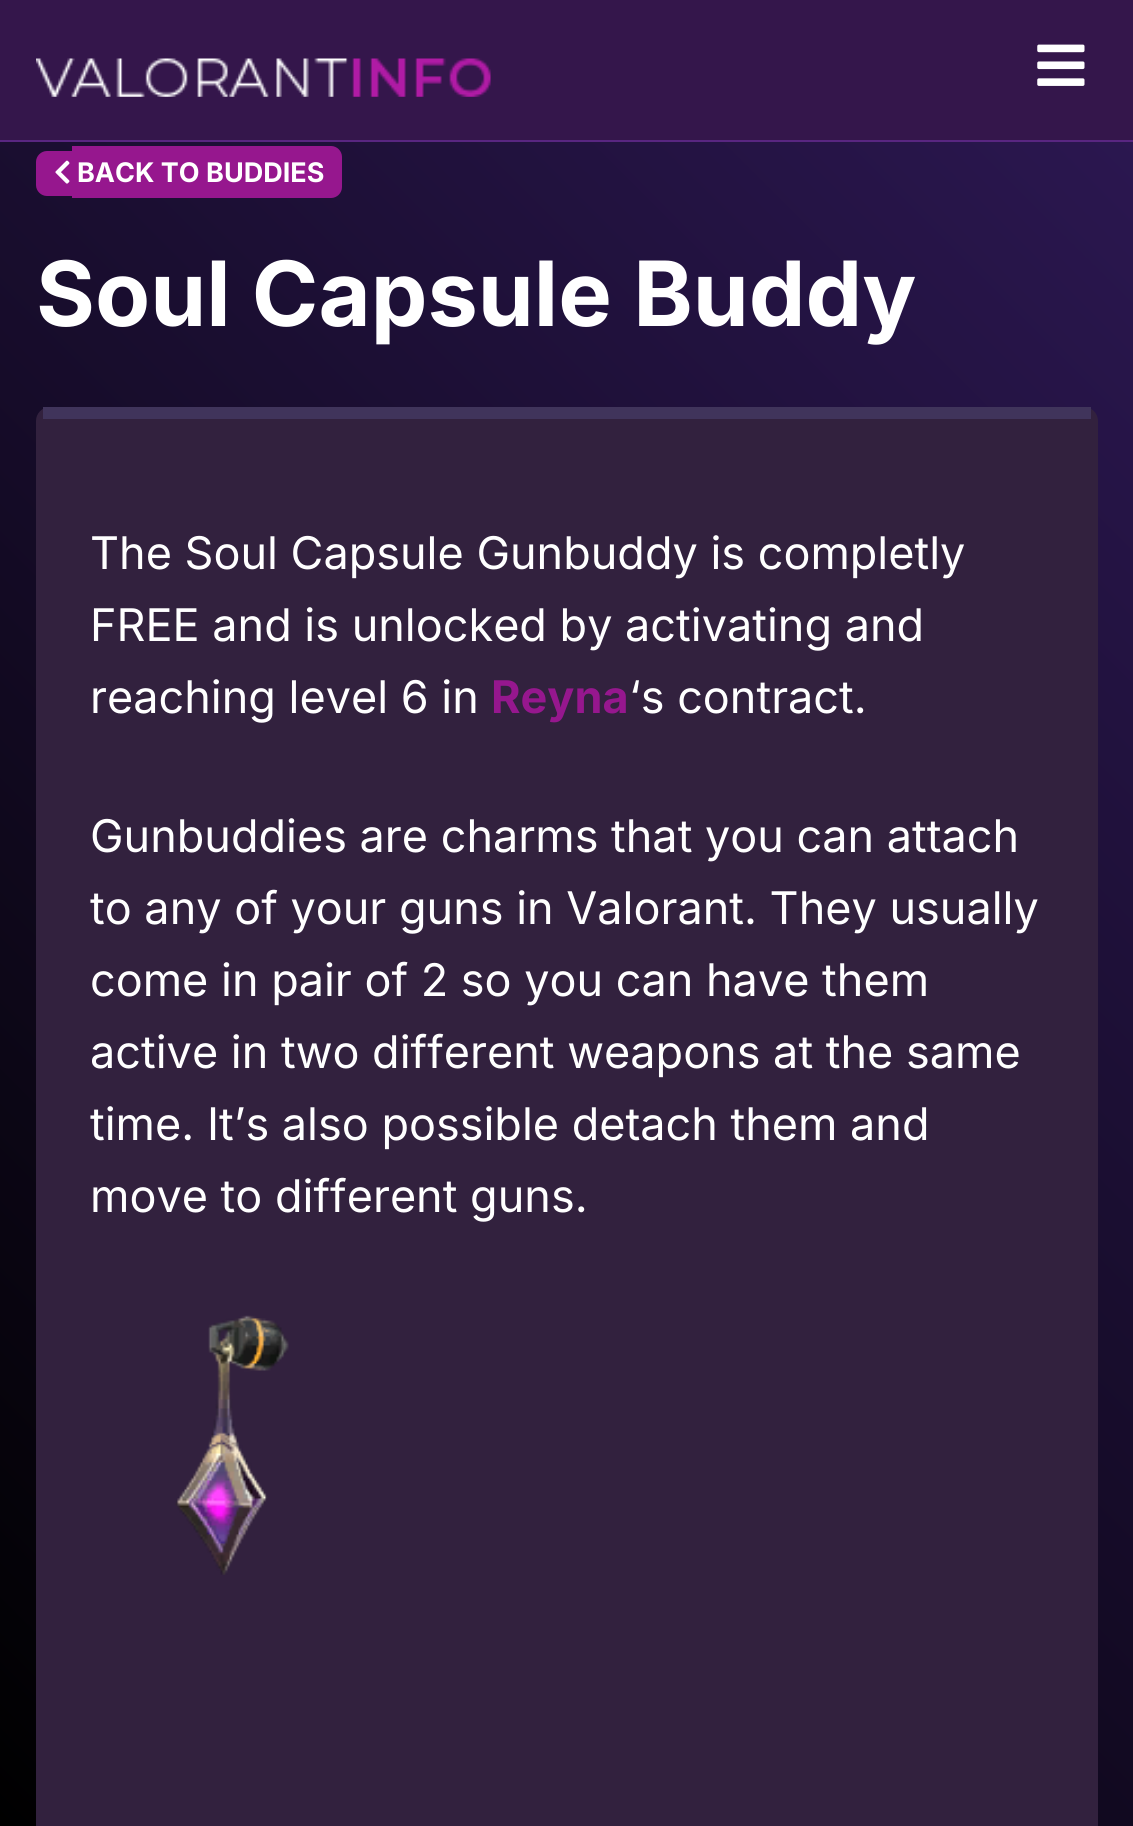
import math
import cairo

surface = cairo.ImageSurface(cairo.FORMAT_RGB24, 1133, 1826)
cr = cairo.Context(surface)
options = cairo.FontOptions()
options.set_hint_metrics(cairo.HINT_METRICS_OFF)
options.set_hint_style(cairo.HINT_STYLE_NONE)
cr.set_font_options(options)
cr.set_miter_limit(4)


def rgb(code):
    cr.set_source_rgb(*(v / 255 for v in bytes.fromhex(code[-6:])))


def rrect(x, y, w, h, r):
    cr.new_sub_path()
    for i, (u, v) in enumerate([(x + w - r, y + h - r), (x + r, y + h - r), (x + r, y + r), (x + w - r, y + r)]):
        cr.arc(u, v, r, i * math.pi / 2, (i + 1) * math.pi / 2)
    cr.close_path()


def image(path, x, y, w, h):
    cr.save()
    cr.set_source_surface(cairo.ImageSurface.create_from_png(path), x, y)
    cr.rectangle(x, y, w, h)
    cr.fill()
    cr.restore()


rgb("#ffffff")
cr.paint()
gradient = cairo.LinearGradient(-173, 1654, 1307, 173)
gradient.add_color_stop_rgba(0, 0, 0, 0, 1)
gradient.add_color_stop_rgba(1, 0.176, 0.094, 0.329, 1)
cr.set_source(gradient)
cr.rectangle(0, 142, 1133, 1684)
cr.fill()
rgb("#34164b")
cr.rectangle(0, 0, 1133, 140)
cr.fill()
rgb("#592681")
cr.rectangle(0, 140, 1133, 2)
cr.fill()
image("img/1.png", 36, 58, 455, 39)
image("img/2.png", 1037, 44, 48, 42)
rgb("#96178e")
cr.new_path()
cr.move_to(47, 151)
cr.line_to(72, 151)
cr.line_to(72, 196)
cr.line_to(47, 196)
cr.curve_to(41, 196, 36, 191, 36, 185)
cr.line_to(36, 162)
cr.curve_to(36, 156, 41, 151, 47, 151)
cr.close_path()
cr.fill()
cr.new_path()
cr.move_to(72, 146)
cr.line_to(331, 146)
cr.curve_to(337, 146, 342, 151, 342, 157)
cr.line_to(342, 187)
cr.curve_to(342, 193, 337, 198, 331, 198)
cr.line_to(72, 198)
cr.close_path()
cr.fill()
image("img/3.png", 55, 160, 15, 24)
rgb("#32213e")
rrect(36, 407, 1062, 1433, 14)
cr.fill()
rgb("#40345b")
cr.rectangle(43, 407, 1048, 12)
cr.fill()
image("img/4.png", 175, 1315, 114, 260)
cr.select_font_face("Inter", cairo.FONT_SLANT_NORMAL, cairo.FONT_WEIGHT_BOLD)
cr.set_font_size(27)
rgb("#ffffff")
cr.move_to(77, 182)
cr.show_text("BACK TO BUDDIES")
cr.set_font_size(90)
cr.move_to(36, 326)
cr.show_text("Soul Capsule Buddy")
cr.select_font_face("Inter")
cr.set_font_size(45)
for x, y, s in [
    (90, 569, "The Soul Capsule Gunbuddy is completly"),
    (90, 641, "FREE and is unlocked by activating and"),
    (90, 713, "reaching level 6 in"),
]:
    cr.move_to(x, y)
    cr.show_text(s)
cr.select_font_face("Inter", cairo.FONT_SLANT_NORMAL, cairo.FONT_WEIGHT_BOLD)
rgb("#96178e")
cr.move_to(491, 713)
cr.show_text("Reyna")
cr.select_font_face("Inter")
rgb("#ffffff")
for x, y, s in [
    (629, 713, "‘s contract."),
    (90, 852, "Gunbuddies are charms that you can attach"),
    (90, 924, "to any of your guns in Valorant. They usually"),
    (90, 996, "come in pair of 2 so you can have them"),
    (90, 1068, "active in two different weapons at the same"),
    (90, 1140, "time. It’s also possible detach them and"),
    (90, 1212, "move to different guns."),
]:
    cr.move_to(x, y)
    cr.show_text(s)
surface.write_to_png("page.png")
